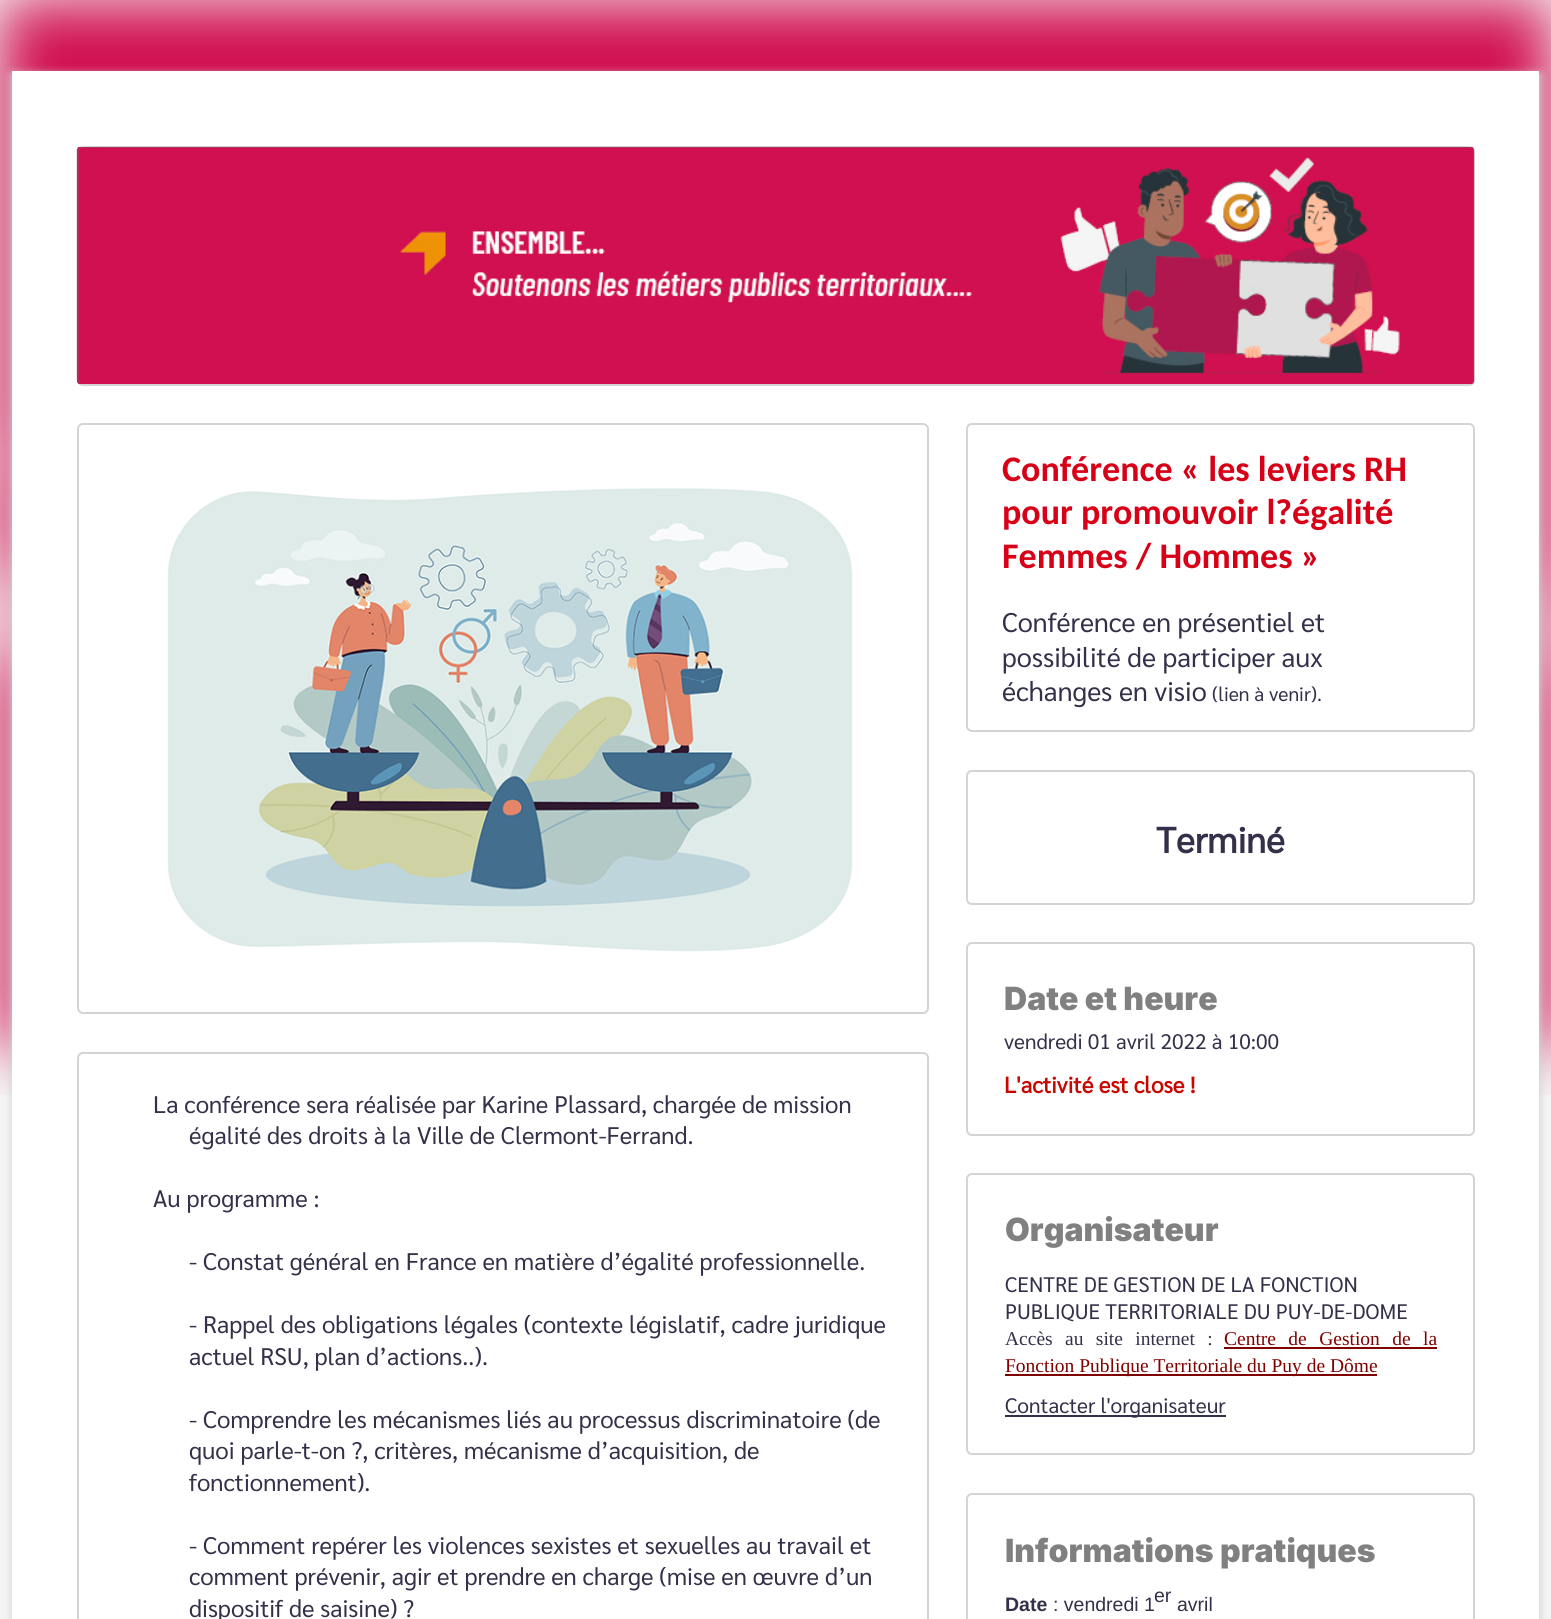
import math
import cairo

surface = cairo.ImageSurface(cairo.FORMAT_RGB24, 1551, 1619)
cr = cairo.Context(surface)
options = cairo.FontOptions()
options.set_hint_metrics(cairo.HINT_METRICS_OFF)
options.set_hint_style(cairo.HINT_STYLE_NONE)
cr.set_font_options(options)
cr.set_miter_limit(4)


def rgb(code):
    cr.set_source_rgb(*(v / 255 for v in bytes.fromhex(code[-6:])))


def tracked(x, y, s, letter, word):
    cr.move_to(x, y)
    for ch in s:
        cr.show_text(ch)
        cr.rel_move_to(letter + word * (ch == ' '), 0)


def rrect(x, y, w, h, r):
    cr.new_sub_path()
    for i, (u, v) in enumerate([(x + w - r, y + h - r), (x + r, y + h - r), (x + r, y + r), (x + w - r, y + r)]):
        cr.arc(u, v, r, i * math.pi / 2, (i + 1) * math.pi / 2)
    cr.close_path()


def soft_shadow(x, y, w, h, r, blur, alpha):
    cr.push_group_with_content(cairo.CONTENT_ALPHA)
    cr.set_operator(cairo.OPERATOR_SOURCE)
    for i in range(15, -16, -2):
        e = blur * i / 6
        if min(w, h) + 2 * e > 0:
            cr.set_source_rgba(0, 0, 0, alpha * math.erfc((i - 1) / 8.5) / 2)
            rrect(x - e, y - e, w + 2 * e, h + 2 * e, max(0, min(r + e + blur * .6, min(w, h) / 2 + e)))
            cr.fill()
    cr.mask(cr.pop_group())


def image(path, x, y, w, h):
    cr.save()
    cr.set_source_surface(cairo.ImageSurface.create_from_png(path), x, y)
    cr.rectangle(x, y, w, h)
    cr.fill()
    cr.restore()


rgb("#f5f5f5")
cr.paint()
image("img/1.png", 0, 0, 1551, 1095)
rgb("#d6d6d6")
soft_shadow(11, 74, 1530, 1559, 0, 4.5, 1)
rgb("#ffffff")
cr.rectangle(12, 71, 1527, 1548)
cr.fill()
image("img/2.png", 76, 147, 1399, 237)
rrect(78, 147, 1396, 238, 5)
cr.set_source_rgba(0.439, 0.439, 0.439, 0.3)
cr.stroke()
rrect(78, 424, 850, 589, 5)
rgb("#d4d4d4")
cr.stroke()
image("img/3.png", 167, 488, 686, 464)
rrect(78, 1053, 850, 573, 5)
cr.stroke()
rrect(967, 424, 507, 307, 5)
cr.stroke()
rrect(967, 771, 507, 133, 5)
cr.stroke()
rrect(967, 943, 507, 192, 5)
cr.stroke()
rrect(967, 1174, 507, 280, 5)
cr.stroke()
for x, y, w, h, color in [
    (1224, 1347, 213, 2, "#800000"),
    (1005, 1374, 372, 2, "#800000"),
    (1005, 1415, 221, 2, "#352f49"),
]:
    rgb(color)
    cr.rectangle(x, y, w, h)
    cr.fill()
rrect(967, 1494, 507, 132, 5)
rgb("#d4d4d4")
cr.stroke()
cr.select_font_face("Sarabun")
cr.set_font_size(24)
rgb("#352f49")
for x, y, s in [
    (153, 1113, "La conférence sera réalisée par Karine Plassard, chargée de mission"),
    (189, 1144, "égalité des droits à la Ville de Clermont-Ferrand."),
    (153, 1207, "Au programme :"),
    (189, 1270, "- Constat général en France en matière d’égalité professionnelle."),
    (189, 1333, "- Rappel des obligations légales (contexte législatif, cadre juridique"),
    (189, 1365, "actuel RSU, plan d’actions..)."),
    (189, 1428, "- Comprendre les mécanismes liés au processus discriminatoire (de"),
    (189, 1459, "quoi parle-t-on ?, critères, mécanisme d’acquisition, de"),
    (189, 1491, "fonctionnement)."),
    (189, 1554, "- Comment repérer les violences sexistes et sexuelles au travail et"),
    (189, 1585, "comment prévenir, agir et prendre en charge (mise en œuvre d’un"),
    (189, 1617, "dispositif de saisine) ?"),
]:
    cr.move_to(x, y)
    cr.show_text(s)
cr.select_font_face("Carlito", cairo.FONT_SLANT_NORMAL, cairo.FONT_WEIGHT_BOLD)
cr.set_font_size(36)
rgb("#d70017")
for x, y, s in [
    (1002, 481, "Conférence « les leviers RH"),
    (1002, 524, "pour promouvoir l?égalité"),
    (1002, 568, "Femmes / Hommes »"),
]:
    cr.move_to(x, y)
    cr.show_text(s)
cr.select_font_face("Sarabun")
cr.set_font_size(27)
rgb("#352f49")
for x, y, s in [
    (1002, 632, "Conférence en présentiel et"),
    (1002, 667, "possibilité de participer aux"),
    (1002, 701, "échanges en visio"),
]:
    cr.move_to(x, y)
    cr.show_text(s)
cr.set_font_size(19.5)
cr.move_to(1212, 701)
cr.show_text("(lien à venir).")
cr.select_font_face("Sarabun", cairo.FONT_SLANT_NORMAL, cairo.FONT_WEIGHT_BOLD)
cr.set_font_size(36)
cr.move_to(1156, 853)
cr.show_text("Terminé")
cr.select_font_face("Inter Black")
cr.set_font_size(32)
rgb("#808080")
cr.move_to(1004, 1010)
cr.show_text("Date et heure")
cr.select_font_face("Sarabun")
cr.set_font_size(21)
rgb("#352f49")
cr.move_to(1004, 1049)
cr.show_text("vendredi 01 avril 2022 à 10:00")
cr.select_font_face("Sarabun", cairo.FONT_SLANT_NORMAL, cairo.FONT_WEIGHT_BOLD)
cr.set_font_size(22.5)
rgb("#c80800")
cr.move_to(1004, 1093)
cr.show_text("L'activité est close !")
cr.select_font_face("Inter Black")
cr.set_font_size(32)
rgb("#808080")
cr.move_to(1005, 1241)
cr.show_text("Organisateur")
cr.select_font_face("Sarabun")
cr.set_font_size(21)
rgb("#352f49")
cr.move_to(1005, 1292)
cr.show_text("CENTRE DE GESTION DE LA FONCTION")
cr.move_to(1005, 1319)
cr.show_text("PUBLIQUE TERRITORIALE DU PUY-DE-DOME")
cr.select_font_face("Liberation Serif")
cr.set_font_size(19.5)
tracked(1005, 1345, "Accès au site internet :", 0, 7.5)
rgb("#800000")
tracked(1224, 1345, "Centre de Gestion de la", 0, 7.5)
cr.move_to(1005, 1372)
cr.show_text("Fonction Publique Territoriale du Puy de Dôme")
cr.select_font_face("Sarabun")
cr.set_font_size(21)
rgb("#352f49")
cr.move_to(1005, 1413)
cr.show_text("Contacter l'organisateur")
cr.select_font_face("Inter Black")
cr.set_font_size(32)
rgb("#808080")
cr.move_to(1005, 1562)
cr.show_text("Informations pratiques")
cr.select_font_face("Liberation Sans", cairo.FONT_SLANT_NORMAL, cairo.FONT_WEIGHT_BOLD)
cr.set_font_size(19.5)
rgb("#352f49")
cr.move_to(1005, 1611)
cr.show_text("Date")
cr.select_font_face("Liberation Sans")
for x, y, s in [
    (1053, 1611, ": vendredi 1"),
    (1154, 1602, "er"),
    (1177, 1611, "avril"),
]:
    cr.move_to(x, y)
    cr.show_text(s)
surface.write_to_png("page.png")
